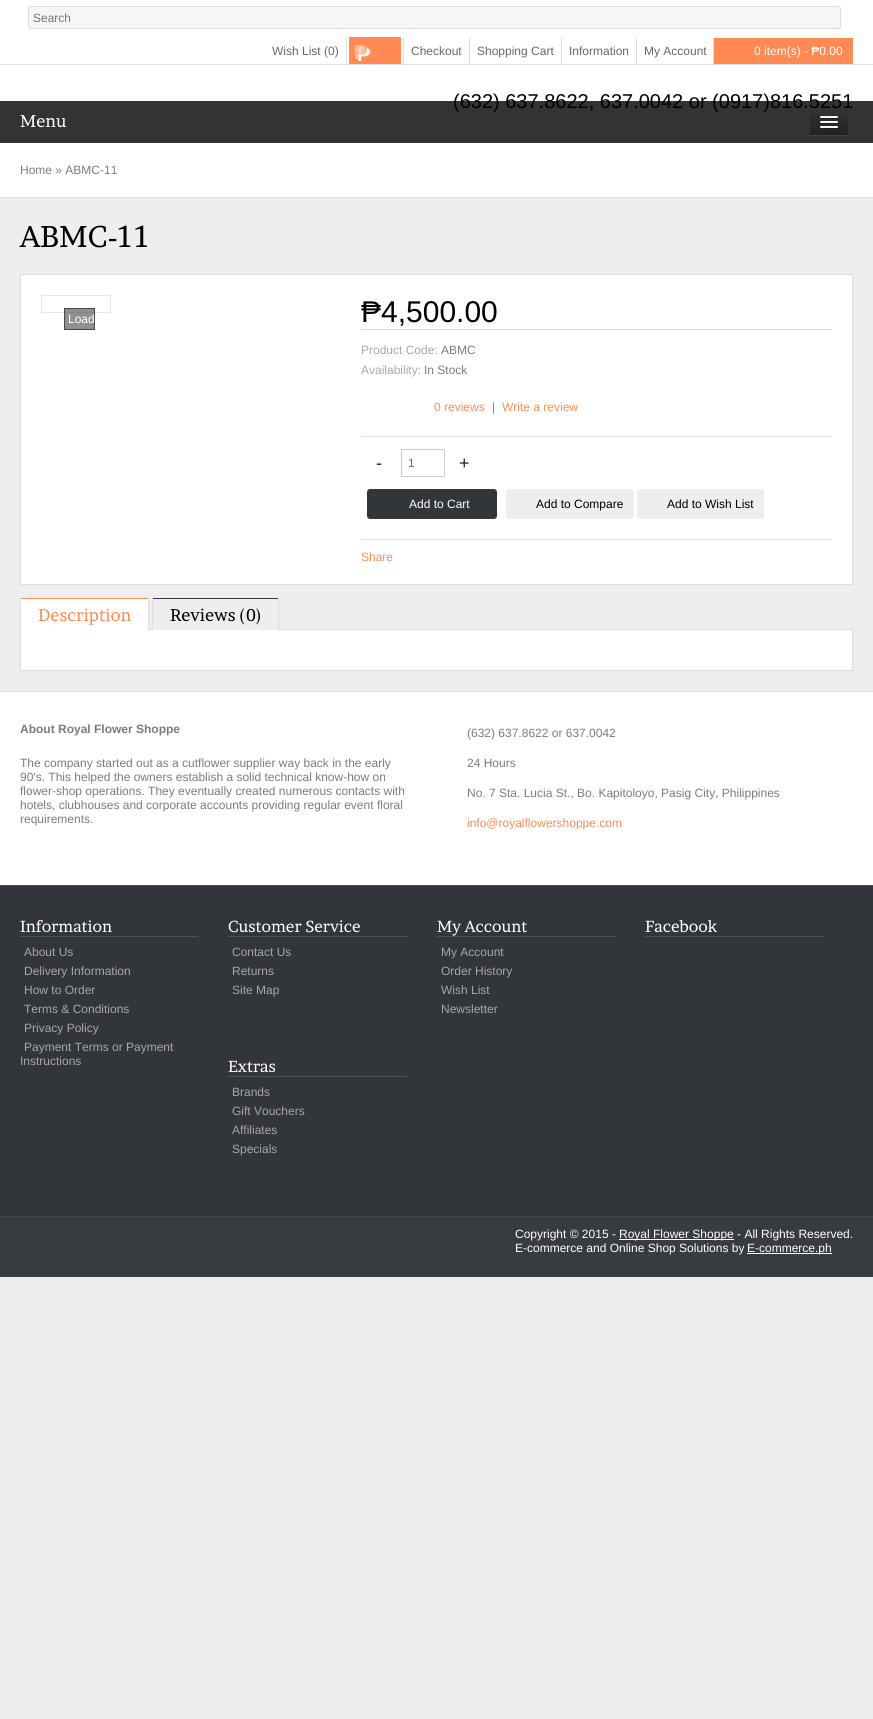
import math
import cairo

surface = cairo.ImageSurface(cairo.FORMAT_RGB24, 873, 1719)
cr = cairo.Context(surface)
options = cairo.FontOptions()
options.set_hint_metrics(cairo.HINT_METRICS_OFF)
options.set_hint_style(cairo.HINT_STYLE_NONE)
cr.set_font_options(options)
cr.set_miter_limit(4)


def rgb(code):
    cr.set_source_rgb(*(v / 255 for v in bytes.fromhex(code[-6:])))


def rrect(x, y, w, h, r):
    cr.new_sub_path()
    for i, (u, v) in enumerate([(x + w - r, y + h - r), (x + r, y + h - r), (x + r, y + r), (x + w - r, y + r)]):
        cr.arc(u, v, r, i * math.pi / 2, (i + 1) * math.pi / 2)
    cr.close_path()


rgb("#eeeeee")
cr.paint()
rgb("#ffffff")
cr.rectangle(0, 0, 873, 64)
cr.fill()
rgb("#dddddd")
cr.rectangle(0, 64, 873, 1)
cr.fill()
rgb("#f6f6f6")
rrect(28.5, 6.5, 812, 22, 2.5)
cr.fill_preserve()
rgb("#dddddd")
cr.set_line_width(1)
cr.stroke()
for x, y, w, h, color in [
    (346, 38, 1, 26, "#dddddd"),
    (403, 38, 1, 25, "#dddddd"),
    (349, 37, 52, 27, "#ff8a54"),
    (469, 38, 1, 26, "#dddddd"),
    (561, 38, 1, 26, "#dddddd"),
    (636, 38, 1, 26, "#dddddd"),
    (713, 38, 1, 26, "#dddddd"),
    (714, 38, 139, 26, "#ff8a54"),
    (0, 65, 873, 36, "#ffffff"),
    (0, 101, 873, 42, "#333333"),
    (810, 135, 38, 1, "#424242"),
]:
    rgb(color)
    cr.rectangle(x, y, w, h)
    cr.fill()
gradient = cairo.LinearGradient(829, 109, 829, 135)
gradient.add_color_stop_rgba(0, 0.2, 0.2, 0.2, 1)
gradient.add_color_stop_rgba(1, 0.133, 0.133, 0.133, 1)
cr.set_source(gradient)
cr.rectangle(810, 113, 38, 22)
cr.fill()
rgb("#222222")
cr.new_path()
cr.move_to(820, 117.5)
cr.curve_to(819, 119.5, 823.5, 119, 823.5, 119)
cr.line_to(834.5, 119)
cr.curve_to(834.5, 119, 839, 119.5, 838, 117.5)
cr.curve_to(837, 118.5, 830.5, 118, 829, 118)
cr.curve_to(827.5, 118, 821, 118.5, 820, 117.5)
cr.close_path()
cr.fill()
rgb("#f5f5f5")
rrect(820, 116, 18, 2, 1)
cr.fill()
rgb("#202020")
cr.new_path()
cr.move_to(820, 122.5)
cr.curve_to(819, 124.5, 823.5, 124, 823.5, 124)
cr.line_to(834.5, 124)
cr.curve_to(834.5, 124, 839, 124.5, 838, 122.5)
cr.curve_to(837, 123.5, 830.5, 123, 829, 123)
cr.curve_to(827.5, 123, 821, 123.5, 820, 122.5)
cr.close_path()
cr.fill()
rgb("#f5f5f5")
rrect(820, 121, 18, 2, 1)
cr.fill()
rgb("#1d1d1d")
cr.new_path()
cr.move_to(820, 127.5)
cr.curve_to(819, 129.5, 823.5, 129, 823.5, 129)
cr.line_to(834.5, 129)
cr.curve_to(834.5, 129, 839, 129.5, 838, 127.5)
cr.curve_to(837, 128.5, 830.5, 128, 829, 128)
cr.curve_to(827.5, 128, 821, 128.5, 820, 127.5)
cr.close_path()
cr.fill()
rgb("#f5f5f5")
rrect(820, 126, 18, 2, 1)
cr.fill()
rgb("#ffffff")
cr.rectangle(0, 143, 873, 54)
cr.fill()
rgb("#dddddd")
cr.rectangle(0, 197, 873, 1)
cr.fill()
rgb("#ffffff")
cr.rectangle(20.5, 274.5, 832, 310)
cr.fill_preserve()
rgb("#dddddd")
cr.stroke()
cr.rectangle(41.5, 295.5, 69, 17)
rgb("#e7e7e7")
cr.stroke()
cr.set_source_rgba(0.133, 0.133, 0.133, 0.5)
cr.rectangle(64, 308, 31, 22)
cr.fill()
cr.rectangle(64.5, 308.5, 30, 21)
cr.set_source_rgba(0, 0, 0, 0.5)
cr.stroke()
for x, y, w, h, color in [
    (361, 329, 471, 1, "#dddddd"),
    (361, 436, 471, 1, "#dddddd"),
    (361, 539, 471, 1, "#dddddd"),
]:
    rgb(color)
    cr.rectangle(x, y, w, h)
    cr.fill()
cr.rectangle(401.5, 449.5, 43, 27)
rgb("#cccccc")
cr.stroke()
rgb("#32353a")
rrect(367, 489, 130, 30, 3)
cr.fill()
rgb("#eeeeee")
rrect(506, 489, 128, 30, 3)
cr.fill()
rrect(637, 489, 127, 30, 3)
cr.fill()
for x, y, w, h, color in [
    (149, 629, 704, 1, "#dddddd"),
    (21, 599, 127, 31, "#ffffff"),
    (20, 598, 129, 1, "#ff8a54"),
    (148, 598, 1, 32, "#dddddd"),
    (20, 598, 1, 32, "#dddddd"),
    (153, 629, 125, 1, "#eeeeee"),
    (152, 598, 127, 1, "#32353a"),
    (278, 598, 1, 32, "#dddddd"),
    (152, 598, 1, 32, "#dddddd"),
    (21, 630, 831, 40, "#ffffff"),
    (852, 630, 1, 41, "#dddddd"),
    (20, 670, 833, 1, "#dddddd"),
    (20, 630, 1, 41, "#dddddd"),
    (0, 692, 873, 193, "#ffffff"),
    (0, 691, 873, 1, "#dddddd"),
    (0, 886, 873, 330, "#32353a"),
    (0, 885, 873, 1, "#44474c"),
    (20, 936, 178, 1, "#4e5057"),
    (228, 936, 179, 1, "#4e5057"),
    (228, 1076, 179, 1, "#4e5057"),
    (437, 936, 178, 1, "#4e5057"),
    (645, 936, 178, 1, "#4e5057"),
    (0, 1217, 873, 60, "#383b40"),
    (0, 1216, 873, 1, "#44474c"),
    (619, 1239, 115, 1, "#ffffff"),
    (747, 1253, 85, 1, "#ffffff"),
]:
    rgb(color)
    cr.rectangle(x, y, w, h)
    cr.fill()
cr.select_font_face("Liberation Sans")
cr.set_font_size(12)
rgb("#757575")
cr.move_to(33, 22)
cr.show_text("Search")
rgb("#666666")
cr.move_to(272, 55)
cr.show_text("Wish List (0)")
cr.select_font_face("Liberation Sans", cairo.FONT_SLANT_NORMAL, cairo.FONT_WEIGHT_BOLD)
cr.set_font_size(20)
rgb("#ffffff")
cr.move_to(357, 61)
cr.show_text("₱")
rgb("#ffbc9d")
cr.move_to(354, 59)
cr.show_text("₱")
cr.select_font_face("Liberation Sans")
cr.set_font_size(12)
rgb("#666666")
for x, y, s in [
    (411, 55, "Checkout"),
    (477, 55, "Shopping Cart"),
    (569, 55, "Information"),
    (644, 55, "My Account"),
]:
    cr.move_to(x, y)
    cr.show_text(s)
rgb("#ffffff")
cr.move_to(754, 55)
cr.show_text("0 item(s) - ₱0.00")
cr.set_font_size(20)
rgb("#000000")
cr.move_to(453, 108)
cr.show_text("(632) 637.8622, 637.0042 or (0917)816.5251")
cr.select_font_face("Brawler")
cr.set_font_size(17)
rgb("#ffffff")
cr.move_to(20, 127)
cr.show_text("Menu")
cr.select_font_face("Liberation Sans")
cr.set_font_size(12)
rgb("#7b7b7b")
cr.move_to(20, 174)
cr.show_text("Home » ABMC-11")
cr.select_font_face("Brawler")
cr.set_font_size(30)
rgb("#000000")
cr.move_to(20, 247)
cr.show_text("ABMC-11")
cr.select_font_face("Liberation Sans")
cr.set_font_size(12)
rgb("#ffffff")
cr.move_to(68, 323)
cr.show_text("Load")
cr.set_font_size(30)
rgb("#000000")
cr.move_to(361, 322)
cr.show_text("₱4,500.00")
cr.set_font_size(12)
rgb("#a7a7a7")
cr.move_to(361, 354)
cr.show_text("Product Code:")
rgb("#7b7b7b")
cr.move_to(441, 354)
cr.show_text("ABMC")
rgb("#a7a7a7")
cr.move_to(361, 374)
cr.show_text("Availability:")
rgb("#7b7b7b")
cr.move_to(424, 374)
cr.show_text("In Stock")
rgb("#ff8a54")
cr.move_to(434, 411)
cr.show_text("0 reviews")
rgb("#7b7b7b")
cr.move_to(492, 411)
cr.show_text("|")
rgb("#ff8a54")
cr.move_to(502, 411)
cr.show_text("Write a review")
cr.set_font_size(18)
rgb("#222222")
cr.move_to(376, 469)
cr.show_text("-")
cr.set_font_size(12)
rgb("#666666")
cr.move_to(408, 467)
cr.show_text("1")
cr.set_font_size(18)
rgb("#222222")
cr.move_to(459, 469)
cr.show_text("+")
cr.set_font_size(12)
rgb("#ffffff")
cr.move_to(409, 508)
cr.show_text("Add to Cart")
rgb("#000000")
cr.move_to(536, 508)
cr.show_text("Add to Compare")
cr.move_to(667, 508)
cr.show_text("Add to Wish List")
rgb("#ff8a54")
cr.move_to(361, 561)
cr.show_text("Share")
cr.select_font_face("Brawler")
cr.set_font_size(17)
cr.move_to(38, 621)
cr.show_text("Description")
rgb("#000000")
cr.move_to(170, 621)
cr.show_text("Reviews (0)")
cr.select_font_face("Liberation Sans", cairo.FONT_SLANT_NORMAL, cairo.FONT_WEIGHT_BOLD)
cr.set_font_size(12)
rgb("#7b7b7b")
cr.move_to(20, 733)
cr.show_text("About Royal Flower Shoppe")
cr.select_font_face("Liberation Sans")
for x, y, s in [
    (20, 767, "The company started out as a cutflower supplier way back in the early"),
    (20, 781, "90's. This helped the owners establish a solid technical know-how on"),
    (20, 795, "flower-shop operations. They eventually created numerous contacts with"),
    (20, 809, "hotels, clubhouses and corporate accounts providing regular event floral"),
    (20, 823, "requirements."),
    (467, 737, "(632) 637.8622 or 637.0042"),
    (467, 767, "24 Hours"),
    (467, 797, "No. 7 Sta. Lucia St., Bo. Kapitoloyo, Pasig City, Philippines"),
]:
    cr.move_to(x, y)
    cr.show_text(s)
rgb("#ff8a54")
cr.move_to(467, 827)
cr.show_text("info@royalflowershoppe.com")
cr.select_font_face("Brawler")
cr.set_font_size(16)
rgb("#ffffff")
cr.move_to(20, 932)
cr.show_text("Information")
cr.select_font_face("Liberation Sans")
cr.set_font_size(12)
rgb("#a7a7a7")
for x, y, s in [
    (24, 956, "About Us"),
    (24, 975, "Delivery Information"),
    (24, 994, "How to Order"),
    (24, 1013, "Terms & Conditions"),
    (24, 1032, "Privacy Policy"),
    (24, 1051, "Payment Terms or Payment"),
    (20, 1065, "Instructions"),
]:
    cr.move_to(x, y)
    cr.show_text(s)
cr.select_font_face("Brawler")
cr.set_font_size(16)
rgb("#ffffff")
cr.move_to(228, 932)
cr.show_text("Customer Service")
cr.select_font_face("Liberation Sans")
cr.set_font_size(12)
rgb("#a7a7a7")
for x, y, s in [
    (232, 956, "Contact Us"),
    (232, 975, "Returns"),
    (232, 994, "Site Map"),
]:
    cr.move_to(x, y)
    cr.show_text(s)
cr.select_font_face("Brawler")
cr.set_font_size(16)
rgb("#ffffff")
cr.move_to(228, 1072)
cr.show_text("Extras")
cr.select_font_face("Liberation Sans")
cr.set_font_size(12)
rgb("#a7a7a7")
for x, y, s in [
    (232, 1096, "Brands"),
    (232, 1115, "Gift Vouchers"),
    (232, 1134, "Affiliates"),
    (232, 1153, "Specials"),
]:
    cr.move_to(x, y)
    cr.show_text(s)
cr.select_font_face("Brawler")
cr.set_font_size(16)
rgb("#ffffff")
cr.move_to(437, 932)
cr.show_text("My Account")
cr.select_font_face("Liberation Sans")
cr.set_font_size(12)
rgb("#a7a7a7")
for x, y, s in [
    (441, 956, "My Account"),
    (441, 975, "Order History"),
    (441, 994, "Wish List"),
    (441, 1013, "Newsletter"),
]:
    cr.move_to(x, y)
    cr.show_text(s)
cr.select_font_face("Brawler")
cr.set_font_size(16)
rgb("#ffffff")
cr.move_to(645, 932)
cr.show_text("Facebook")
cr.select_font_face("Liberation Sans")
cr.set_font_size(12)
for x, y, s in [
    (515, 1238, "Copyright © 2015 -"),
    (619, 1238, "Royal Flower Shoppe - All Rights Reserved."),
    (515, 1252, "E-commerce and Online Shop Solutions by"),
    (747, 1252, "E-commerce.ph"),
]:
    cr.move_to(x, y)
    cr.show_text(s)
surface.write_to_png("page.png")
